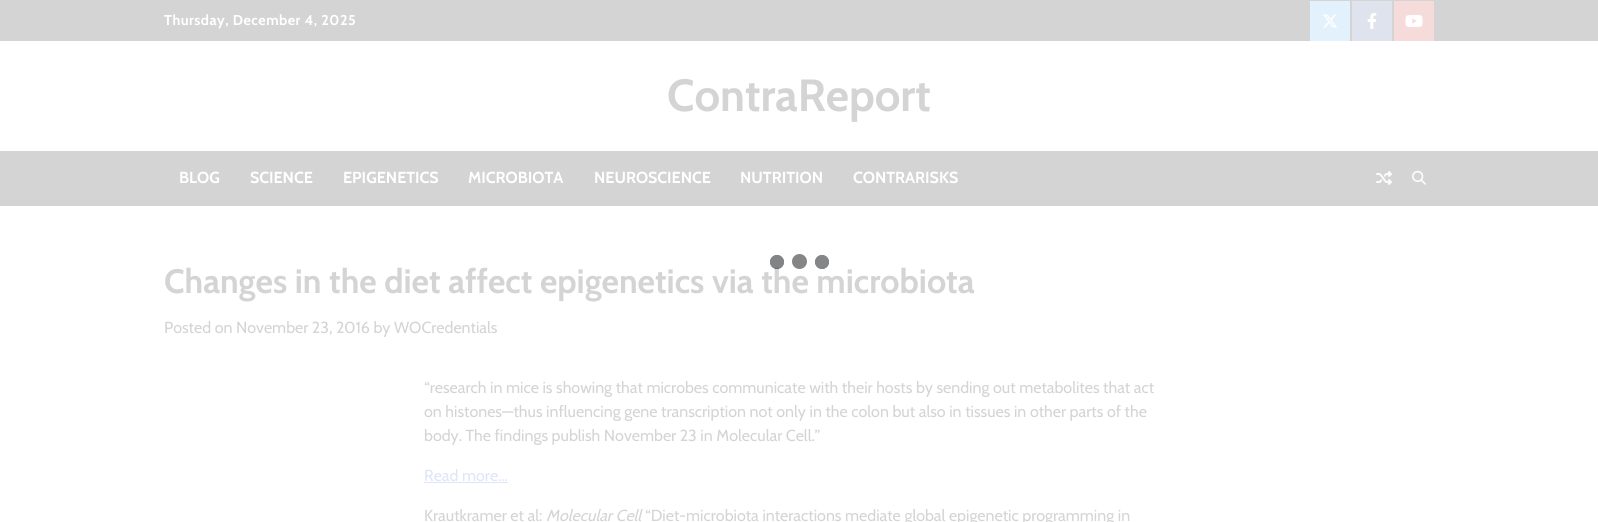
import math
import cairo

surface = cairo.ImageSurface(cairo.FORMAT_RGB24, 1598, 522)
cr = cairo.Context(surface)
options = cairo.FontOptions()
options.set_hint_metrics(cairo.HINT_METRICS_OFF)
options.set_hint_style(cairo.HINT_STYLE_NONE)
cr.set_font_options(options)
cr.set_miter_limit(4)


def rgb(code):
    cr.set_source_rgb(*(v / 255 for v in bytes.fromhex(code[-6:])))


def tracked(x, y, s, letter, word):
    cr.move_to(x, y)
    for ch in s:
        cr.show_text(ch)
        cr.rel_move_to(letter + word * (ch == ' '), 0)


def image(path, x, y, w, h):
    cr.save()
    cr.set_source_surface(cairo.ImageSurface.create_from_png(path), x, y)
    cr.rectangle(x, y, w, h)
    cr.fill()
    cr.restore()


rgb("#ffffff")
cr.paint()
rgb("#d4d4d4")
cr.rectangle(0, 0, 1598, 41)
cr.fill()
rgb("#e2f1fc")
cr.rectangle(1310, 1, 40, 40)
cr.fill()
image("img/1.png", 1323, 14, 15, 14)
rgb("#dee3ee")
cr.rectangle(1352, 1, 40, 40)
cr.fill()
image("img/2.png", 1367, 13, 10, 16)
rgb("#f5dcdb")
cr.rectangle(1394, 1, 40, 40)
cr.fill()
image("img/3.png", 1405, 15, 18, 12)
rgb("#d4d4d4")
cr.rectangle(0, 151, 1598, 55)
cr.fill()
image("img/4.png", 1376, 171, 16, 14)
image("img/5.png", 1412, 170, 14, 15)
rgb("#dfe5fa")
cr.rectangle(424, 482, 84, 1)
cr.fill()
cr.select_font_face("Cabin", cairo.FONT_SLANT_NORMAL, cairo.FONT_WEIGHT_BOLD)
cr.set_font_size(14.25)
rgb("#ffffff")
tracked(164, 25, "Thursday, December 4, 2025", 0.5, 0)
cr.set_font_size(45)
rgb("#d4d4d4")
cr.move_to(667, 111)
cr.show_text("ContraReport")
cr.set_font_size(16)
rgb("#ffffff")
for x, y, s in [
    (179, 183, "BLOG"),
    (250, 183, "SCIENCE"),
    (343, 183, "EPIGENETICS"),
    (468, 183, "MICROBIOTA"),
    (594, 183, "NEUROSCIENCE"),
    (740, 183, "NUTRITION"),
    (853, 183, "CONTRARISKS"),
]:
    cr.move_to(x, y)
    cr.show_text(s)
cr.set_font_size(33.75)
rgb("#d4d4d4")
cr.move_to(164, 293)
cr.show_text("Changes in the diet affect epigenetics via the microbiota")
rgb("#848586")
cr.new_path()
cr.arc(799.5, 261.5, 7.5, 0, 2 * math.pi)
cr.fill()
gradient = cairo.RadialGradient(777, 262, 0, 777, 262, 7.5)
gradient.add_color_stop_rgba(0.9, 0.098, 0.106, 0.114, 0.54)
gradient.add_color_stop_rgba(1, 0.098, 0.106, 0.114, 0)
cr.set_source(gradient)
cr.rectangle(770, 255, 14, 14)
cr.fill()
gradient = cairo.RadialGradient(822, 262, 0, 822, 262, 7.5)
gradient.add_color_stop_rgba(0.9, 0.518, 0.522, 0.525, 1)
gradient.add_color_stop_rgba(1, 1, 1, 1, 1)
cr.set_source(gradient)
cr.rectangle(815, 255, 14, 14)
cr.fill()
cr.select_font_face("Cabin")
cr.set_font_size(16)
rgb("#d4d4d4")
for x, y, s in [
    (164, 333, "Posted on November 23, 2016 by WOCredentials"),
    (424, 393, "“research in mice is showing that microbes communicate with their hosts by sending out metabolites that act"),
    (424, 417, "on histones—thus influencing gene transcription not only in the colon but also in tissues in other parts of the"),
    (424, 441, "body. The findings publish November 23 in Molecular Cell.”"),
]:
    cr.move_to(x, y)
    cr.show_text(s)
rgb("#dfe5fa")
cr.move_to(424, 481)
cr.show_text("Read more…")
rgb("#d4d4d4")
cr.move_to(424, 521)
cr.show_text("Krautkramer et al:")
cr.select_font_face("Cabin", cairo.FONT_SLANT_ITALIC)
cr.move_to(546, 521)
cr.show_text("Molecular Cell")
cr.select_font_face("Cabin")
cr.move_to(645, 521)
cr.show_text("“Diet-microbiota interactions mediate global epigenetic programming in")
surface.write_to_png("page.png")
